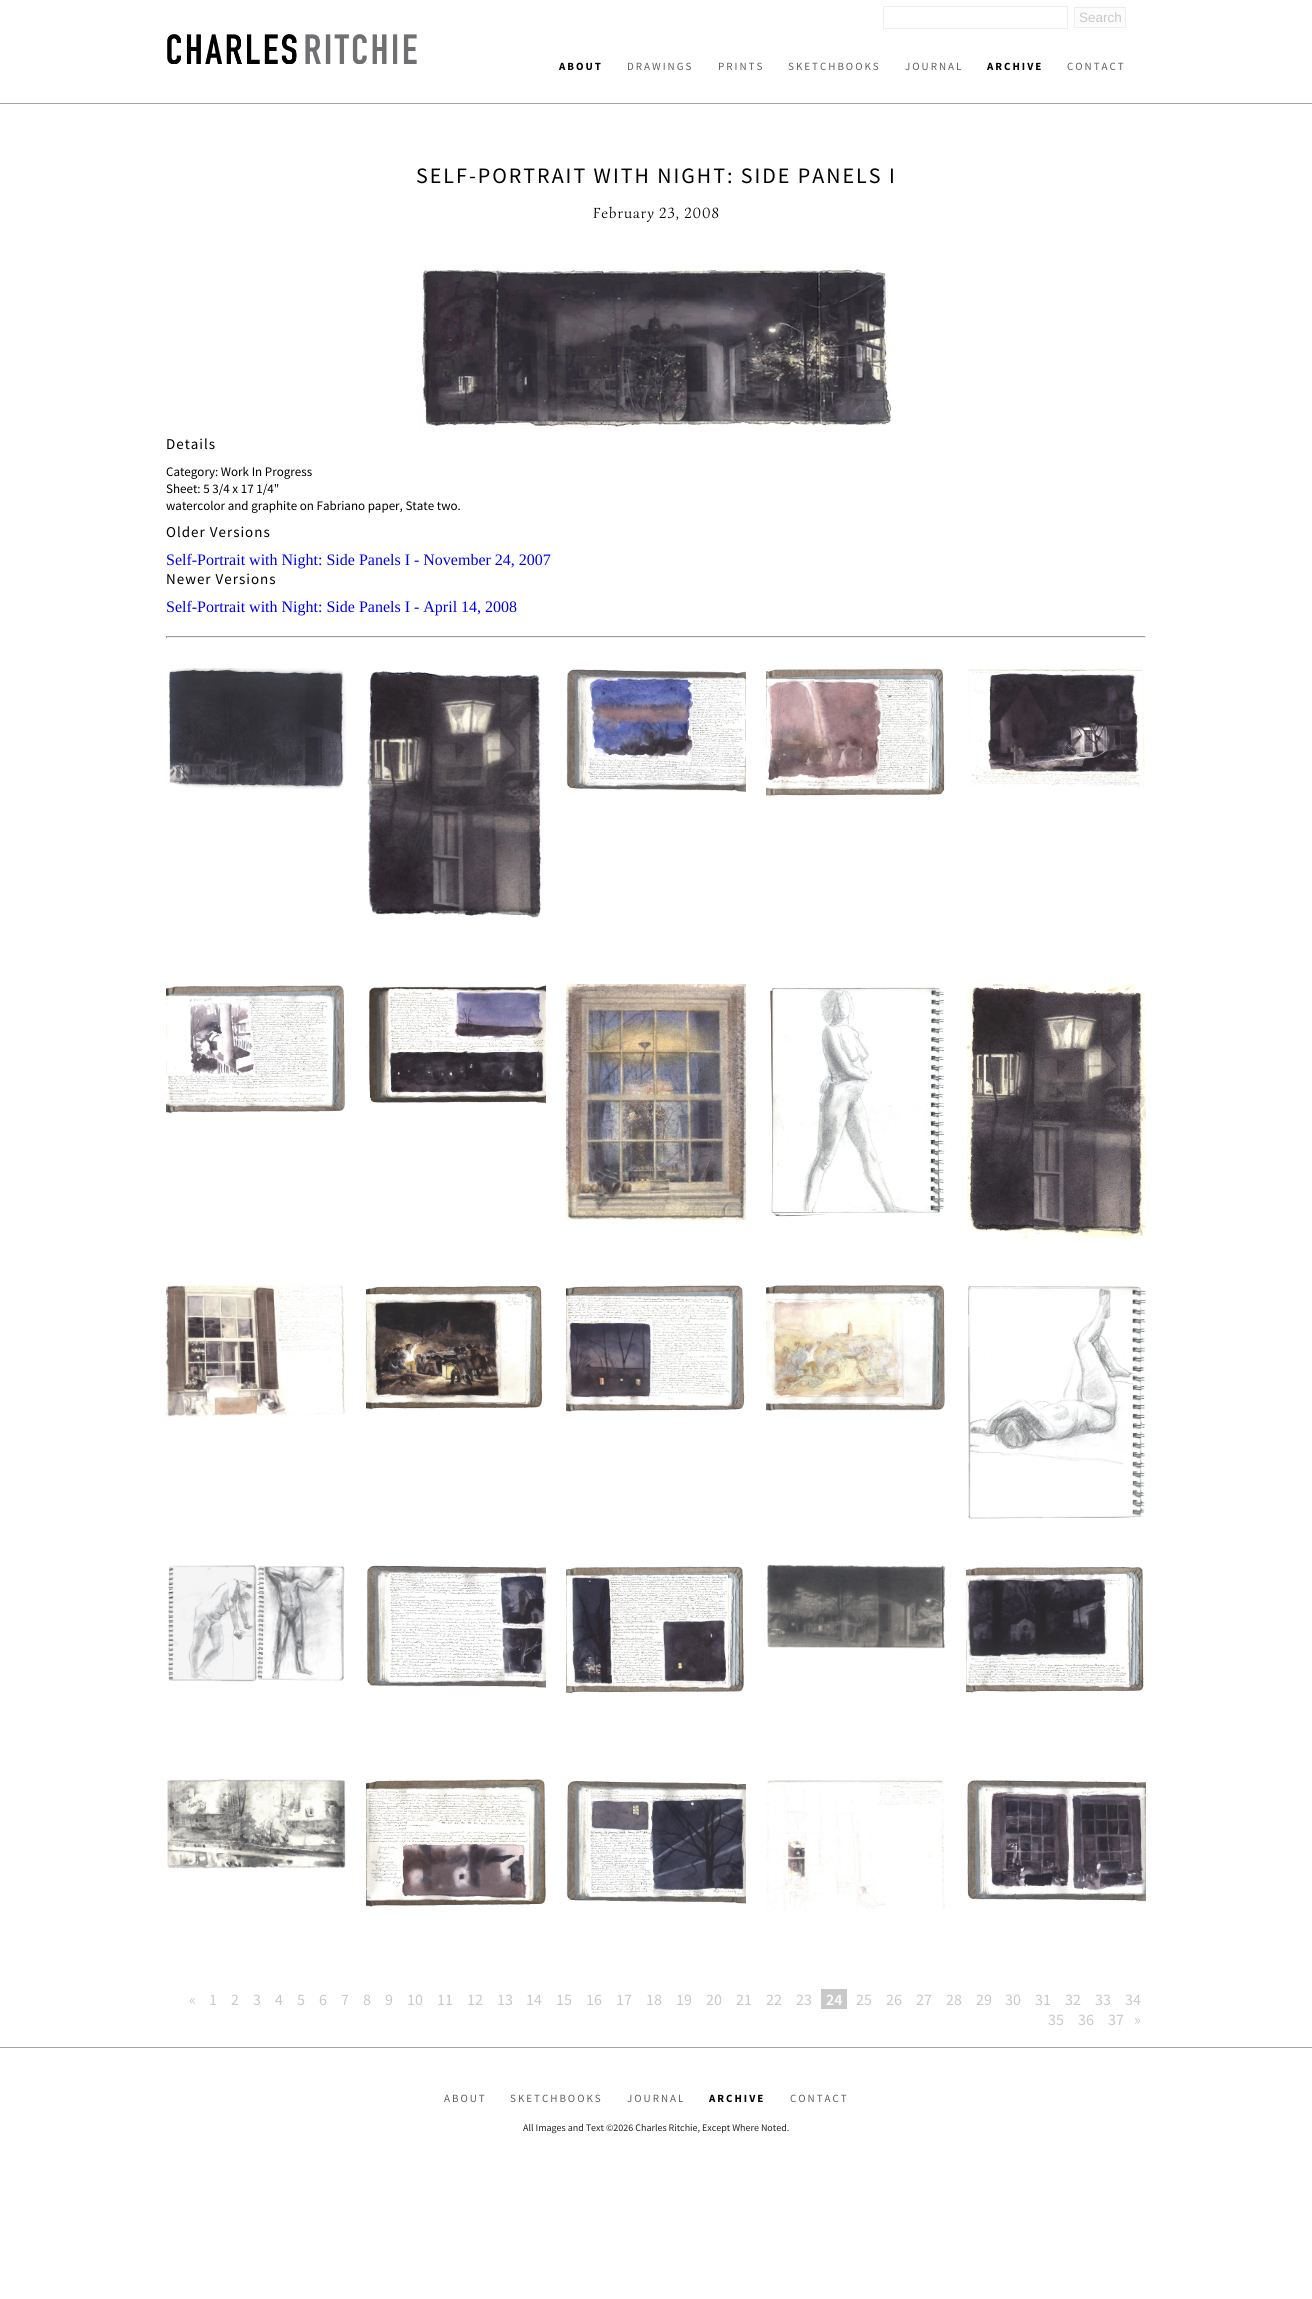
import math
import cairo

surface = cairo.ImageSurface(cairo.FORMAT_RGB24, 1312, 2299)
cr = cairo.Context(surface)
options = cairo.FontOptions()
options.set_hint_metrics(cairo.HINT_METRICS_OFF)
options.set_hint_style(cairo.HINT_STYLE_NONE)
cr.set_font_options(options)
cr.set_miter_limit(4)


def rgb(code):
    cr.set_source_rgb(*(v / 255 for v in bytes.fromhex(code[-6:])))


def tracked(x, y, s, letter, word):
    cr.move_to(x, y)
    for ch in s:
        cr.show_text(ch)
        cr.rel_move_to(letter + word * (ch == ' '), 0)


def image(path, x, y, w, h):
    cr.save()
    cr.set_source_surface(cairo.ImageSurface.create_from_png(path), x, y)
    cr.rectangle(x, y, w, h)
    cr.fill()
    cr.restore()


rgb("#ffffff")
cr.paint()
rgb("#a4a4a4")
cr.rectangle(0, 103, 1312, 1)
cr.fill()
cr.rectangle(883.5, 6.5, 184, 22)
rgb("#eeeeee")
cr.set_line_width(1)
cr.stroke()
rgb("#fcfcfc")
cr.rectangle(1074.5, 7.5, 51, 20)
cr.fill_preserve()
rgb("#eeeeee")
cr.stroke()
image("img/1.png", 167, 34, 250, 30)
image("img/2.png", 419, 265, 473, 164)
for x, y, w, h, color in [
    (166, 636, 980, 1, "#9f9f9f"),
    (1145, 636, 1, 2, "#eeeeee"),
    (166, 637, 980, 1, "#eeeeee"),
    (166, 636, 1, 2, "#9f9f9f"),
]:
    rgb(color)
    cr.rectangle(x, y, w, h)
    cr.fill()
image("img/3.png", 169, 668, 177, 121)
image("img/4.png", 367, 671, 176, 247)
image("img/5.png", 566, 669, 180, 124)
image("img/6.png", 766, 668, 179, 128)
image("img/7.png", 967, 668, 179, 119)
image("img/8.png", 166, 985, 180, 129)
image("img/9.png", 366, 985, 180, 119)
image("img/10.png", 566, 984, 180, 236)
image("img/11.png", 767, 987, 179, 230)
image("img/12.png", 966, 984, 180, 255)
image("img/13.png", 166, 1284, 179, 133)
image("img/14.png", 366, 1285, 177, 125)
image("img/15.png", 566, 1285, 179, 127)
image("img/16.png", 766, 1284, 179, 127)
image("img/17.png", 968, 1286, 178, 233)
image("img/18.png", 167, 1565, 178, 117)
image("img/19.png", 366, 1565, 180, 124)
image("img/20.png", 566, 1565, 178, 129)
image("img/21.png", 766, 1564, 180, 85)
image("img/22.png", 966, 1566, 178, 127)
image("img/23.png", 167, 1779, 179, 90)
image("img/24.png", 366, 1779, 180, 128)
image("img/25.png", 566, 1780, 180, 124)
image("img/26.png", 766, 1779, 179, 134)
image("img/27.png", 967, 1779, 179, 123)
rgb("#c9c9c9")
cr.rectangle(821, 1989, 26, 20)
cr.fill()
rgb("#a4a4a4")
cr.rectangle(0, 2047, 1312, 1)
cr.fill()
cr.select_font_face("Liberation Sans")
cr.set_font_size(13.5)
rgb("#c9c9c9")
cr.move_to(1079, 22)
cr.show_text("Search")
cr.select_font_face("Source Sans Pro", cairo.FONT_SLANT_NORMAL, cairo.FONT_WEIGHT_BOLD)
cr.set_font_size(11)
rgb("#000000")
tracked(559, 70, "ABOUT", 2, 0)
cr.select_font_face("Source Sans Pro")
rgb("#605d5f")
for x, y, s in [
    (627, 70, "DRAWINGS"),
    (718, 70, "PRINTS"),
    (788, 70, "SKETCHBOOKS"),
    (905, 70, "JOURNAL"),
]:
    tracked(x, y, s, 2, 0)
cr.select_font_face("Source Sans Pro", cairo.FONT_SLANT_NORMAL, cairo.FONT_WEIGHT_BOLD)
rgb("#000000")
tracked(987, 70, "ARCHIVE", 2, 0)
cr.select_font_face("Source Sans Pro")
rgb("#605d5f")
tracked(1067, 70, "CONTACT", 2, 0)
cr.set_font_size(22)
rgb("#000000")
tracked(416, 183, "SELF-PORTRAIT WITH NIGHT: SIDE PANELS I", 2, 0)
cr.select_font_face("Simonetta")
cr.set_font_size(15)
tracked(593, 218, "February 23, 2008", 1, 0)
cr.select_font_face("Source Sans Pro")
tracked(166, 449, "Details", 1, 0)
cr.set_font_size(13)
for x, y, s in [
    (166, 476, "Category: Work In Progress"),
    (166, 493, "Sheet: 5 3/4 x 17 1/4\""),
    (166, 510, "watercolor and graphite on Fabriano paper, State two."),
]:
    cr.move_to(x, y)
    cr.show_text(s)
cr.set_font_size(15)
tracked(166, 537, "Older Versions", 1, 0)
cr.select_font_face("Liberation Serif")
cr.set_font_size(16)
rgb("#0000ee")
cr.move_to(166, 565)
cr.show_text("Self-Portrait with Night: Side Panels I - November 24, 2007")
cr.select_font_face("Source Sans Pro")
cr.set_font_size(15)
rgb("#000000")
tracked(166, 584, "Newer Versions", 1, 0)
cr.select_font_face("Liberation Serif")
cr.set_font_size(16)
rgb("#0000ee")
cr.move_to(166, 612)
cr.show_text("Self-Portrait with Night: Side Panels I - April 14, 2008")
cr.select_font_face("Source Sans Pro")
rgb("#c9c9c9")
for x, y, s in [
    (189, 2005, "«"),
    (209, 2005, "1"),
    (231, 2005, "2"),
    (253, 2005, "3"),
    (275, 2005, "4"),
    (297, 2005, "5"),
    (319, 2005, "6"),
    (341, 2005, "7"),
    (363, 2005, "8"),
    (385, 2005, "9"),
    (407, 2005, "10"),
    (437, 2005, "11"),
    (467, 2005, "12"),
    (497, 2005, "13"),
    (526, 2005, "14"),
    (556, 2005, "15"),
    (586, 2005, "16"),
    (616, 2005, "17"),
    (646, 2005, "18"),
    (676, 2005, "19"),
    (706, 2005, "20"),
    (736, 2005, "21"),
    (766, 2005, "22"),
    (796, 2005, "23"),
]:
    cr.move_to(x, y)
    cr.show_text(s)
cr.select_font_face("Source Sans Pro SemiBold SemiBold")
rgb("#ffffff")
cr.move_to(826, 2005)
cr.show_text("24")
cr.select_font_face("Source Sans Pro")
rgb("#c9c9c9")
for x, y, s in [
    (856, 2005, "25"),
    (886, 2005, "26"),
    (916, 2005, "27"),
    (946, 2005, "28"),
    (976, 2005, "29"),
    (1005, 2005, "30"),
    (1035, 2005, "31"),
    (1065, 2005, "32"),
    (1095, 2005, "33"),
    (1125, 2005, "34"),
    (1048, 2025, "35"),
    (1078, 2025, "36"),
    (1108, 2025, "37"),
    (1134, 2025, "»"),
]:
    cr.move_to(x, y)
    cr.show_text(s)
cr.set_font_size(11)
rgb("#605d5f")
for x, y, s in [
    (444, 2102, "ABOUT"),
    (510, 2102, "SKETCHBOOKS"),
    (627, 2102, "JOURNAL"),
]:
    tracked(x, y, s, 2, 0)
cr.select_font_face("Source Sans Pro", cairo.FONT_SLANT_NORMAL, cairo.FONT_WEIGHT_BOLD)
rgb("#000000")
tracked(709, 2102, "ARCHIVE", 2, 0)
cr.select_font_face("Source Sans Pro")
rgb("#605d5f")
tracked(790, 2102, "CONTACT", 2, 0)
cr.set_font_size(10)
rgb("#222222")
cr.move_to(523, 2131)
cr.show_text("All Images and Text ©2026 Charles Ritchie, Except Where Noted.")
surface.write_to_png("page.png")
